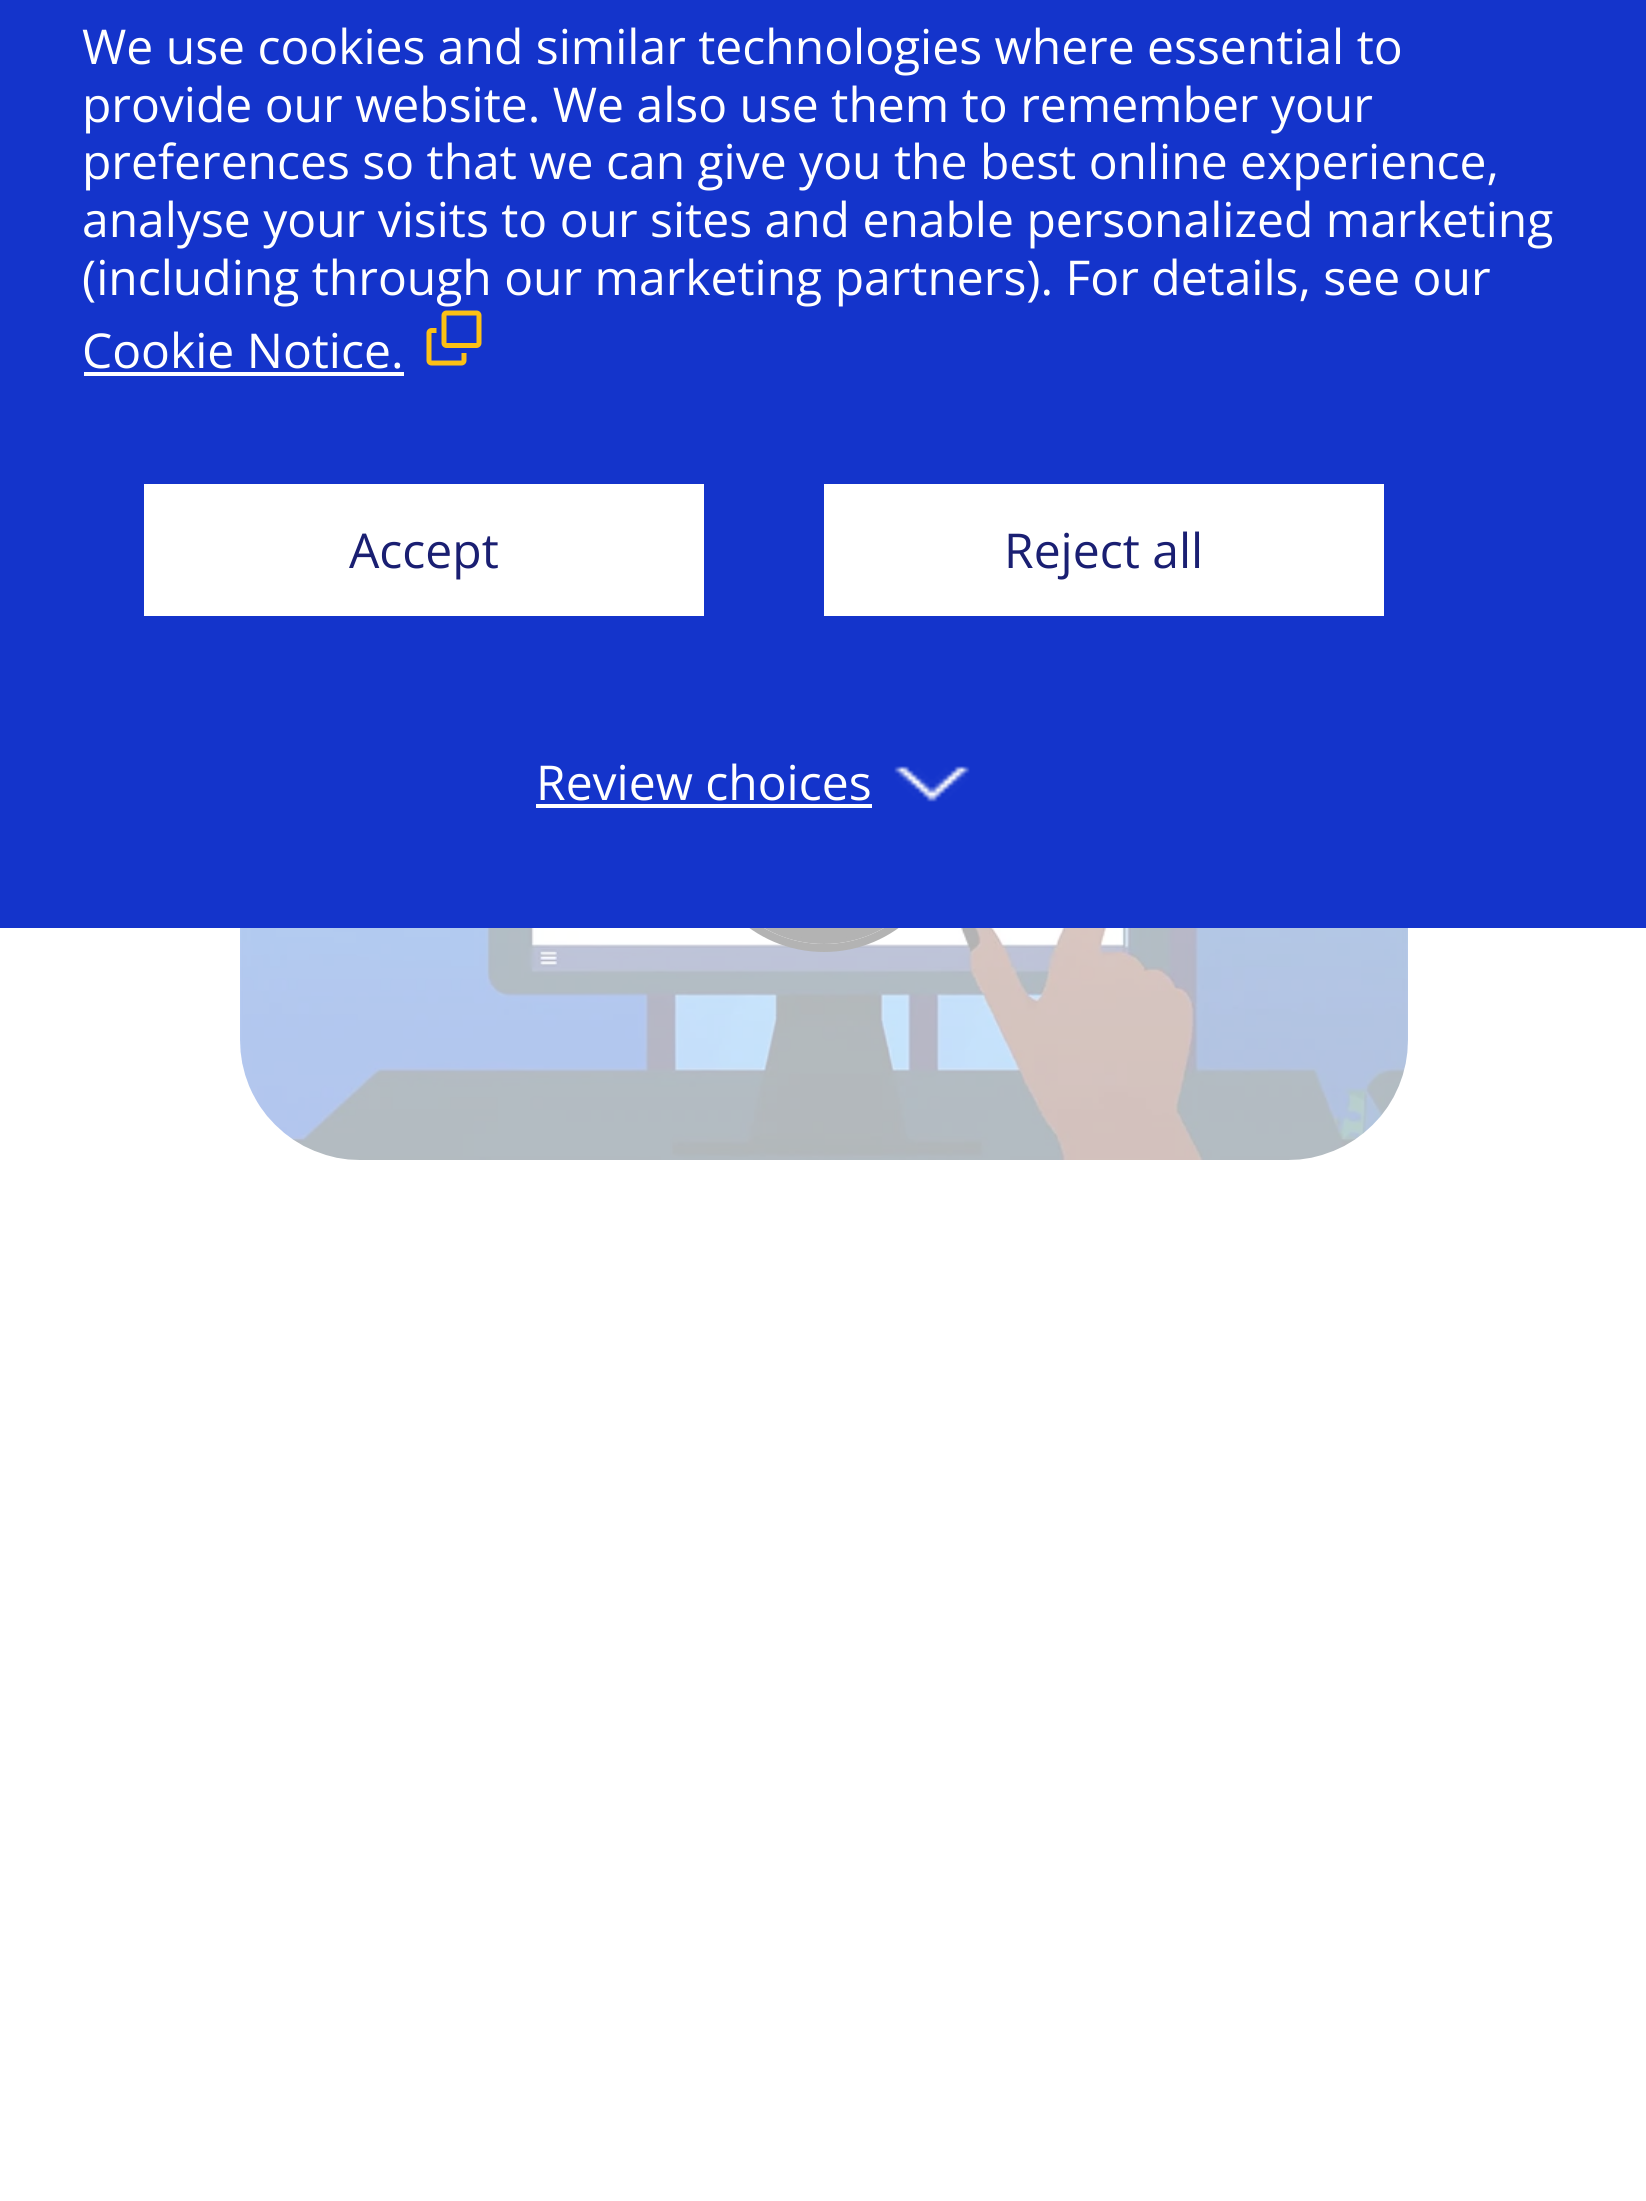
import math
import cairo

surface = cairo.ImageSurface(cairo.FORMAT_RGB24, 1646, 2201)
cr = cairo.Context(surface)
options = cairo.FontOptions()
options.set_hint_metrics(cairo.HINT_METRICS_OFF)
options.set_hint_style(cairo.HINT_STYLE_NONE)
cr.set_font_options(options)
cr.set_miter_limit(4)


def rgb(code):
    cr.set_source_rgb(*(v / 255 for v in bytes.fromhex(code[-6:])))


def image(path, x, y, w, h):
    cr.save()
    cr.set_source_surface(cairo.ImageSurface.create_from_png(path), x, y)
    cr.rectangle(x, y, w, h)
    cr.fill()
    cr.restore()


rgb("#ffffff")
cr.paint()
image("img/3.png", 240, 928, 1168, 232)
cr.arc(824, 824, 124, 0, 2 * math.pi)
rgb("#b3b3b3")
cr.set_line_width(8)
cr.stroke()
cr.arc(824, 824, 118, 0, 2 * math.pi)
cr.fill_preserve()
cr.set_line_width(4)
cr.stroke()
rgb("#1434cb")
cr.rectangle(0, 0, 1646, 928)
cr.fill()
rgb("#ffffff")
cr.rectangle(84, 372, 320, 4)
cr.fill()
image("img/1.png", 426, 310, 56, 56)
for x, y, w, h, color in [
    (144, 484, 560, 132, "#ffffff"),
    (824, 484, 560, 132, "#ffffff"),
    (536, 804, 336, 4, "#ffffff"),
]:
    rgb(color)
    cr.rectangle(x, y, w, h)
    cr.fill()
image("img/2.png", 894, 766, 76, 36)
cr.select_font_face("Open Sans")
cr.set_font_size(48)
for x, y, s in [
    (82, 64, "We use cookies and similar technologies where essential to"),
    (82, 122, "provide our website. We also use them to remember your"),
    (82, 179, "preferences so that we can give you the best online experience,"),
    (82, 237, "analyse your visits to our sites and enable personalized marketing"),
    (82, 295, "(including through our marketing partners). For details, see our"),
    (82, 368, "Cookie Notice."),
]:
    cr.move_to(x, y)
    cr.show_text(s)
rgb("#1a1f72")
cr.move_to(349, 568)
cr.show_text("Accept")
cr.move_to(1004, 568)
cr.show_text("Reject all")
rgb("#ffffff")
cr.move_to(536, 800)
cr.show_text("Review choices")
surface.write_to_png("page.png")
